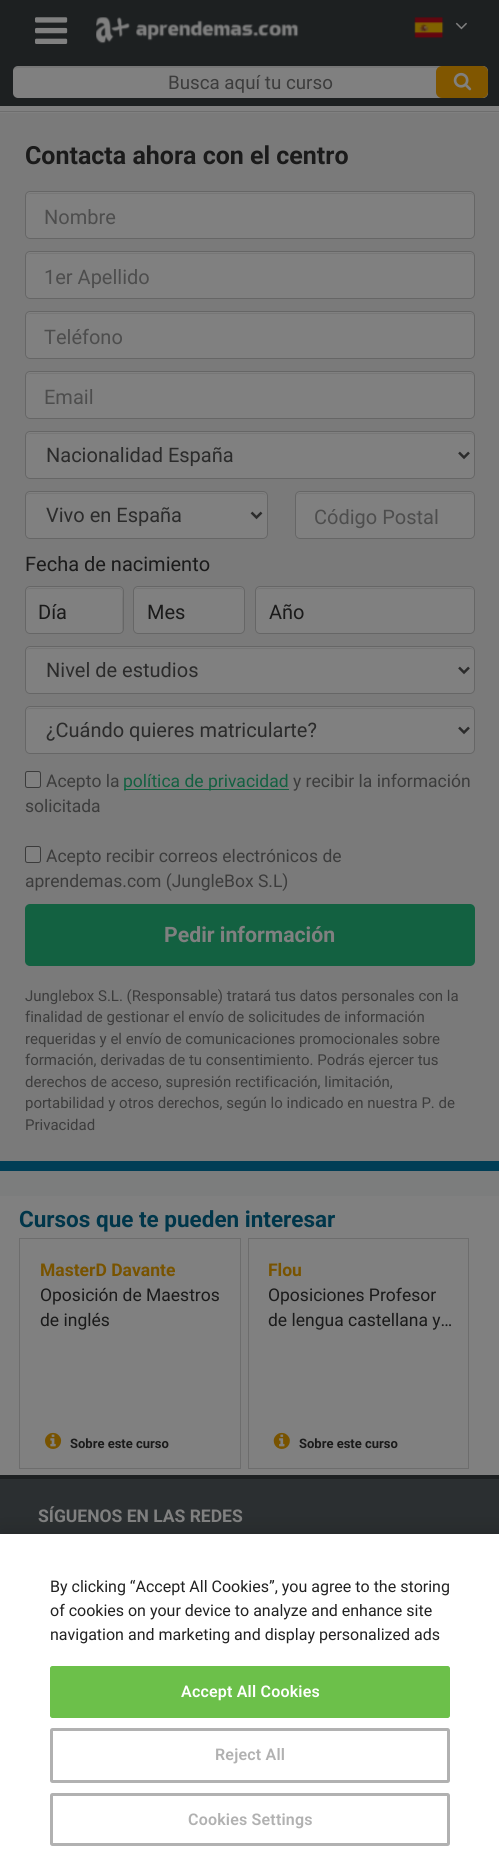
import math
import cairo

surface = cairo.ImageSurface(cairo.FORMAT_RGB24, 499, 1876)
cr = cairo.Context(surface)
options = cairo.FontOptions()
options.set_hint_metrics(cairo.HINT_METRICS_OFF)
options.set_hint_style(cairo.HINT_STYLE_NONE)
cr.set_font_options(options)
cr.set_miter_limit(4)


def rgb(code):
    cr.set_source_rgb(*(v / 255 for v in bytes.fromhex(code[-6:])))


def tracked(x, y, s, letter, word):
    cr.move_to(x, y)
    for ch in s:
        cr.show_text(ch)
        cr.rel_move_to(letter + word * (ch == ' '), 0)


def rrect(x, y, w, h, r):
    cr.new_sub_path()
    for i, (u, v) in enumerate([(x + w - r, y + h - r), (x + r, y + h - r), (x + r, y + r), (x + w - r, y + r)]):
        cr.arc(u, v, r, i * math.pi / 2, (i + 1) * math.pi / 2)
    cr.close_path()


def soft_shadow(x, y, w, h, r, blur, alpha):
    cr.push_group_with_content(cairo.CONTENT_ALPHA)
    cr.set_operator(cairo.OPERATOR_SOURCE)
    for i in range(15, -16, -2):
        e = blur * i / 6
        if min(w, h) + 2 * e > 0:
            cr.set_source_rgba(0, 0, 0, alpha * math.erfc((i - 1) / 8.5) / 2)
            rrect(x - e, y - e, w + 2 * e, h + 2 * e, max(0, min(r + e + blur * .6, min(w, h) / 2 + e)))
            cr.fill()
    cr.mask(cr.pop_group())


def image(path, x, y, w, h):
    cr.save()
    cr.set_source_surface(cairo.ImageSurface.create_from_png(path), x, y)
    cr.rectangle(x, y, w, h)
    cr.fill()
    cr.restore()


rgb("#7c7d7d")
cr.paint()
rgb("#1d2021")
cr.rectangle(0, 0, 499, 106)
cr.fill()
image("img/1.png", 35, 17, 33, 27)
image("img/2.png", 96, 17, 203, 27)
image("img/3.png", 414, 17, 30, 22)
image("img/4.png", 455, 22, 12, 8)
rgb("#808080")
rrect(13, 66, 475, 32, 5)
cr.fill()
cr.set_source_rgba(0, 0, 0, 0.07)
cr.new_path()
cr.move_to(18, 68)
cr.line_to(482, 68)
cr.curve_to(485, 68, 488, 70, 488, 72)
cr.line_to(488, 71)
cr.curve_to(488, 68, 486, 66, 483, 66)
cr.line_to(18, 66)
cr.curve_to(16, 66, 14, 68, 13, 70)
cr.curve_to(14, 69, 16, 68, 18, 68)
cr.close_path()
cr.fill()
rgb("#805600")
rrect(436, 66, 52, 32, 6)
cr.fill()
image("img/5.png", 453, 72, 19, 19)
for x, y, w, h, color in [
    (0, 106, 499, 7, "#808080"),
    (0, 111, 499, 1, "#6d6d6d"),
    (0, 113, 499, 1048, "#7a7a7a"),
    (0, 1161, 499, 10, "#013e56"),
]:
    rgb(color)
    cr.rectangle(x, y, w, h)
    cr.fill()
rgb("#808080")
rrect(25, 191, 450, 48, 5)
cr.fill()
rgb("#767676")
cr.new_path()
cr.move_to(30, 194)
cr.line_to(470, 194)
cr.curve_to(472, 194, 474, 195, 474, 198)
cr.curve_to(474, 195, 473, 193, 470, 193)
cr.line_to(30, 193)
cr.line_to(28, 194)
cr.line_to(27, 195)
cr.line_to(26, 198)
cr.curve_to(26, 195, 28, 194, 30, 194)
cr.close_path()
cr.fill()
rrect(25.5, 191.5, 449, 47, 4.5)
rgb("#666666")
cr.set_line_width(1)
cr.stroke()
rgb("#808080")
rrect(25, 251, 450, 48, 5)
cr.fill()
rgb("#767676")
cr.new_path()
cr.move_to(30, 254)
cr.line_to(470, 254)
cr.curve_to(472, 254, 474, 255, 474, 258)
cr.curve_to(474, 255, 473, 253, 470, 253)
cr.line_to(30, 253)
cr.line_to(28, 254)
cr.line_to(27, 255)
cr.line_to(26, 258)
cr.curve_to(26, 255, 28, 254, 30, 254)
cr.close_path()
cr.fill()
rrect(25.5, 251.5, 449, 47, 4.5)
rgb("#666666")
cr.stroke()
rgb("#808080")
rrect(25, 311, 450, 48, 5)
cr.fill()
rgb("#767676")
cr.new_path()
cr.move_to(30, 314)
cr.line_to(470, 314)
cr.curve_to(472, 314, 474, 315, 474, 318)
cr.curve_to(474, 315, 473, 313, 470, 313)
cr.line_to(30, 313)
cr.line_to(28, 314)
cr.line_to(27, 315)
cr.line_to(26, 318)
cr.curve_to(26, 315, 28, 314, 30, 314)
cr.close_path()
cr.fill()
rrect(25.5, 311.5, 449, 47, 4.5)
rgb("#666666")
cr.stroke()
rgb("#808080")
rrect(25, 371, 450, 48, 5)
cr.fill()
rgb("#767676")
cr.new_path()
cr.move_to(30, 374)
cr.line_to(470, 374)
cr.curve_to(472, 374, 474, 375, 474, 378)
cr.curve_to(474, 375, 473, 373, 470, 373)
cr.line_to(30, 373)
cr.line_to(28, 374)
cr.line_to(27, 375)
cr.line_to(26, 378)
cr.curve_to(26, 375, 28, 374, 30, 374)
cr.close_path()
cr.fill()
rrect(25.5, 371.5, 449, 47, 4.5)
rgb("#666666")
cr.stroke()
rgb("#808080")
rrect(25, 431, 450, 48, 5)
cr.fill()
rgb("#767676")
cr.new_path()
cr.move_to(30, 434)
cr.line_to(470, 434)
cr.curve_to(472, 434, 474, 435, 474, 438)
cr.curve_to(474, 435, 473, 433, 470, 433)
cr.line_to(30, 433)
cr.line_to(28, 434)
cr.line_to(27, 435)
cr.line_to(26, 438)
cr.curve_to(26, 435, 28, 434, 30, 434)
cr.close_path()
cr.fill()
rrect(25.5, 431.5, 449, 47, 4.5)
rgb("#666666")
cr.stroke()
cr.new_path()
cr.move_to(459, 452.5)
cr.line_to(464, 457.5)
cr.line_to(469, 452.5)
rgb("#2b2b2b")
cr.set_line_width(2.5)
cr.stroke()
rgb("#808080")
rrect(25, 491, 243, 48, 5)
cr.fill()
rgb("#767676")
cr.new_path()
cr.move_to(30, 494)
cr.line_to(262, 494)
cr.curve_to(265, 494, 266, 495, 266, 498)
cr.curve_to(266, 495, 265, 493, 262, 493)
cr.line_to(30, 493)
cr.curve_to(27, 493, 26, 495, 26, 498)
cr.curve_to(26, 495, 28, 494, 30, 494)
cr.close_path()
cr.fill()
rrect(25.5, 491.5, 242, 47, 4.5)
rgb("#666666")
cr.set_line_width(1)
cr.stroke()
cr.new_path()
cr.move_to(251.5, 512.5)
cr.line_to(256.5, 517.5)
cr.line_to(261.5, 512.5)
rgb("#2b2b2b")
cr.set_line_width(2.5)
cr.stroke()
rgb("#808080")
rrect(295, 491, 180, 48, 5)
cr.fill()
rgb("#767676")
cr.new_path()
cr.move_to(300, 494)
cr.line_to(470, 494)
cr.curve_to(472, 494, 474, 495, 474, 498)
cr.line_to(474, 497)
cr.curve_to(474, 495, 472, 493, 470, 493)
cr.line_to(300, 493)
cr.curve_to(298, 493, 296, 495, 296, 497)
cr.line_to(296, 498)
cr.curve_to(296, 495, 298, 494, 300, 494)
cr.close_path()
cr.fill()
rrect(295.5, 491.5, 179, 47, 4.5)
rgb("#666666")
cr.set_line_width(1)
cr.stroke()
rgb("#808080")
rrect(25, 586, 99, 48, 5)
cr.fill()
rgb("#767676")
cr.new_path()
cr.move_to(30, 589)
cr.line_to(119, 589)
cr.curve_to(124, 589, 122, 596, 122, 598)
cr.line_to(122, 632)
cr.curve_to(122, 631, 123, 630, 123, 629)
cr.line_to(123, 592)
cr.curve_to(123, 590, 121, 588, 119, 588)
cr.line_to(30, 588)
cr.curve_to(28, 588, 26, 590, 26, 592)
cr.curve_to(26, 590, 28, 589, 30, 589)
cr.close_path()
cr.fill()
rrect(25.5, 586.5, 98, 47, 4.5)
rgb("#666666")
cr.stroke()
rgb("#808080")
rrect(133, 586, 112, 48, 5)
cr.fill()
rgb("#767676")
cr.new_path()
cr.move_to(138, 589)
cr.line_to(240, 589)
cr.curve_to(242, 589, 244, 590, 244, 592)
cr.curve_to(244, 590, 242, 588, 240, 588)
cr.line_to(138, 588)
cr.curve_to(136, 588, 135, 589, 134, 590)
cr.curve_to(135, 589, 136, 589, 138, 589)
cr.close_path()
cr.fill()
rrect(133.5, 586.5, 111, 47, 4.5)
rgb("#666666")
cr.stroke()
rgb("#808080")
rrect(255, 586, 220, 48, 5)
cr.fill()
rgb("#767676")
cr.new_path()
cr.move_to(260, 589)
cr.line_to(470, 589)
cr.curve_to(472, 589, 474, 590, 474, 592)
cr.curve_to(474, 590, 472, 588, 470, 588)
cr.line_to(260, 588)
cr.curve_to(258, 588, 256, 590, 256, 592)
cr.curve_to(256, 590, 258, 589, 260, 589)
cr.close_path()
cr.fill()
rrect(255.5, 586.5, 219, 47, 4.5)
rgb("#666666")
cr.stroke()
rgb("#808080")
rrect(25, 646, 450, 48, 5)
cr.fill()
rgb("#767676")
cr.new_path()
cr.move_to(30, 649)
cr.line_to(470, 649)
cr.curve_to(472, 649, 474, 650, 474, 652)
cr.curve_to(474, 650, 472, 648, 470, 648)
cr.line_to(30, 648)
cr.curve_to(28, 648, 26, 650, 26, 652)
cr.curve_to(26, 650, 28, 649, 30, 649)
cr.close_path()
cr.fill()
rrect(25.5, 646.5, 449, 47, 4.5)
rgb("#666666")
cr.stroke()
cr.new_path()
cr.move_to(459, 667.5)
cr.line_to(464, 672.5)
cr.line_to(469, 667.5)
rgb("#2b2b2b")
cr.set_line_width(2.5)
cr.stroke()
rgb("#808080")
rrect(25, 706, 450, 48, 5)
cr.fill()
rgb("#767676")
cr.new_path()
cr.move_to(30, 709)
cr.line_to(470, 709)
cr.curve_to(472, 709, 474, 710, 474, 712)
cr.curve_to(474, 710, 472, 708, 470, 708)
cr.line_to(30, 708)
cr.curve_to(28, 708, 26, 710, 26, 712)
cr.curve_to(26, 710, 28, 709, 30, 709)
cr.close_path()
cr.fill()
rrect(25.5, 706.5, 449, 47, 4.5)
rgb("#666666")
cr.set_line_width(1)
cr.stroke()
cr.new_path()
cr.move_to(459, 727.5)
cr.line_to(464, 732.5)
cr.line_to(469, 727.5)
rgb("#2b2b2b")
cr.set_line_width(2.5)
cr.stroke()
rgb("#808080")
rrect(25.5, 771.5, 15, 16, 2)
cr.fill_preserve()
rgb("#3b3b3b")
cr.set_line_width(1)
cr.stroke()
rgb("#136141")
cr.rectangle(124, 789, 165, 1)
cr.fill()
rgb("#808080")
rrect(25.5, 846.5, 15, 16, 2)
cr.fill_preserve()
rgb("#3b3b3b")
cr.stroke()
rgb("#136141")
rrect(25, 904, 450, 62, 5)
cr.fill()
rgb("#808080")
cr.rectangle(0, 1196, 499, 279)
cr.fill()
cr.rectangle(19.5, 1238.5, 221, 230)
rgb("#6d6d6d")
cr.stroke()
image("img/6.png", 45, 1432, 17, 17)
cr.rectangle(248.5, 1238.5, 220, 230)
cr.stroke()
image("img/7.png", 273, 1432, 17, 17)
rgb("#2b2f31")
cr.rectangle(0, 1479, 499, 55)
cr.fill()
rgb("#1d2021")
cr.rectangle(0, 1475, 499, 4)
cr.fill()
rgb("#000000")
soft_shadow(0, 1534, 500, 342, 0, 11, 0.2)
rgb("#ffffff")
cr.rectangle(0, 1534, 499, 342)
cr.fill()
rgb("#6cc04a")
rrect(50.5, 1666.5, 399, 51, 2)
cr.fill_preserve()
cr.stroke()
rrect(51.5, 1729.5, 397, 52, 1)
rgb("#b1b1b1")
cr.set_line_width(3)
cr.stroke()
rrect(51.5, 1794.5, 397, 50, 1)
cr.stroke()
cr.select_font_face("Roboto")
cr.set_font_size(18.75)
rgb("#3c3c3c")
cr.move_to(168, 89)
cr.show_text("Busca aquí tu curso")
cr.select_font_face("Roboto", cairo.FONT_SLANT_NORMAL, cairo.FONT_WEIGHT_BOLD)
cr.set_font_size(25)
rgb("#1a1a1a")
cr.move_to(25, 164)
cr.show_text("Contacta ahora con el centro")
cr.select_font_face("Roboto")
cr.set_font_size(20)
rgb("#4d4d4d")
for x, y, s in [
    (44, 224, "Nombre"),
    (44, 284, "1er Apellido"),
    (44, 344, "Teléfono"),
    (44, 404, "Email"),
]:
    cr.move_to(x, y)
    cr.show_text(s)
rgb("#2b2b2b")
cr.move_to(46, 462)
cr.show_text("Nacionalidad España")
cr.move_to(46, 522)
cr.show_text("Vivo en España")
rgb("#4d4d4d")
cr.move_to(314, 524)
cr.show_text("Código Postal")
rgb("#1a1a1a")
for x, y, s in [
    (25, 571, "Fecha de nacimiento"),
    (38, 619, "Día"),
    (147, 619, "Mes"),
    (269, 619, "Año"),
]:
    cr.move_to(x, y)
    cr.show_text(s)
rgb("#2b2b2b")
cr.move_to(46, 677)
cr.show_text("Nivel de estudios")
cr.move_to(46, 737)
cr.show_text("¿Cuándo quieres matricularte?")
cr.set_font_size(17.5)
rgb("#3c3c3c")
cr.move_to(46, 787)
cr.show_text("Acepto la")
rgb("#136141")
cr.move_to(123, 787)
cr.show_text("política de privacidad")
rgb("#3c3c3c")
for x, y, s in [
    (293, 787, "y recibir la información"),
    (25, 812, "solicitada"),
    (46, 862, "Acepto recibir correos electrónicos de"),
    (25, 887, "aprendemas.com (JungleBox S.L)"),
]:
    cr.move_to(x, y)
    cr.show_text(s)
cr.select_font_face("Roboto", cairo.FONT_SLANT_NORMAL, cairo.FONT_WEIGHT_BOLD)
cr.set_font_size(21.25)
rgb("#808080")
cr.move_to(164, 942)
cr.show_text("Pedir información")
cr.select_font_face("Roboto")
cr.set_font_size(15)
rgb("#3c3c3c")
for x, y, s in [
    (25, 1001, "Junglebox S.L. (Responsable) tratará tus datos personales con la"),
    (25, 1022, "finalidad de gestionar el envío de solicitudes de información"),
    (25, 1044, "requeridas y el envío de comunicaciones promocionales sobre"),
    (25, 1065, "formación, derivadas de tu consentimiento. Podrás ejercer tus"),
    (25, 1087, "derechos de acceso, supresión rectificación, limitación,"),
    (25, 1108, "portabilidad y otros derechos, según lo indicado en nuestra P. de"),
    (25, 1130, "Privacidad"),
]:
    cr.move_to(x, y)
    cr.show_text(s)
cr.select_font_face("Roboto", cairo.FONT_SLANT_NORMAL, cairo.FONT_WEIGHT_BOLD)
cr.set_font_size(22.5)
rgb("#00364a")
cr.move_to(19, 1227)
cr.show_text("Cursos que te pueden interesar")
cr.set_font_size(17.5)
rgb("#785300")
cr.move_to(40, 1276)
cr.show_text("MasterD Davante")
cr.select_font_face("Roboto")
rgb("#1a1a1a")
cr.move_to(40, 1301)
cr.show_text("Oposición de Maestros")
cr.move_to(40, 1326)
cr.show_text("de inglés")
cr.select_font_face("Roboto", cairo.FONT_SLANT_NORMAL, cairo.FONT_WEIGHT_BOLD)
cr.set_font_size(13)
cr.move_to(70, 1448)
cr.show_text("Sobre este curso")
cr.set_font_size(17.5)
rgb("#785300")
cr.move_to(268, 1276)
cr.show_text("Flou")
cr.select_font_face("Roboto")
rgb("#1a1a1a")
cr.move_to(268, 1301)
cr.show_text("Oposiciones Profesor")
cr.move_to(268, 1326)
cr.show_text("de lengua castellana y…")
cr.select_font_face("Roboto", cairo.FONT_SLANT_NORMAL, cairo.FONT_WEIGHT_BOLD)
cr.set_font_size(13)
cr.move_to(299, 1448)
cr.show_text("Sobre este curso")
cr.set_font_size(17.5)
rgb("#808080")
cr.move_to(38, 1522)
cr.show_text("SÍGUENOS EN LAS REDES")
cr.select_font_face("Roboto")
cr.set_font_size(16)
rgb("#222222")
for x, y, s in [
    (50, 1592, "By clicking “Accept All Cookies”, you agree to the storing"),
    (50, 1616, "of cookies on your device to analyze and enhance site"),
    (50, 1640, "navigation and marketing and display personalized ads"),
]:
    cr.move_to(x, y)
    cr.show_text(s)
cr.select_font_face("Roboto SemiBold")
rgb("#ffffff")
tracked(181, 1697, "Accept All Cookies", 0.2, 0)
rgb("#b1b1b1")
tracked(215, 1760, "Reject All", 0.2, 0)
tracked(188, 1825, "Cookies Settings", 0.2, 0)
surface.write_to_png("page.png")
